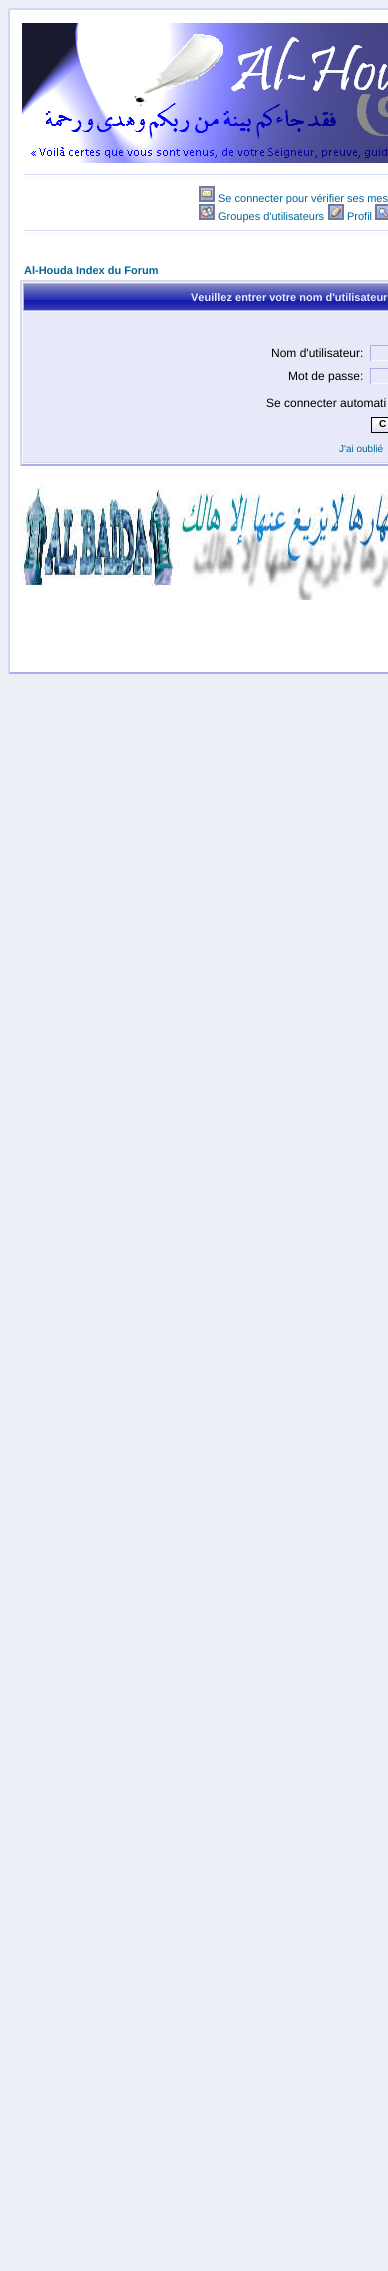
import math
import cairo

surface = cairo.ImageSurface(cairo.FORMAT_RGB24, 388, 2271)
cr = cairo.Context(surface)
options = cairo.FontOptions()
options.set_hint_metrics(cairo.HINT_METRICS_OFF)
options.set_hint_style(cairo.HINT_STYLE_NONE)
cr.set_font_options(options)
cr.set_miter_limit(4)


def rgb(code):
    cr.set_source_rgb(*(v / 255 for v in bytes.fromhex(code[-6:])))


def image(path, x, y, w, h):
    cr.save()
    cr.set_source_surface(cairo.ImageSurface.create_from_png(path), x, y)
    cr.rectangle(x, y, w, h)
    cr.fill()
    cr.restore()


rgb("#ecf0f6")
cr.paint()
rgb("#ffffff")
cr.rectangle(8, 8, 380, 666)
cr.fill()
rgb("#d2d7f2")
cr.new_path()
cr.move_to(8, 8)
cr.line_to(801, 8)
cr.line_to(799, 10)
cr.line_to(10, 10)
cr.close_path()
cr.fill()
rgb("#a9afe7")
cr.new_path()
cr.move_to(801, 674)
cr.line_to(8, 674)
cr.line_to(10, 672)
cr.line_to(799, 672)
cr.close_path()
cr.fill()
rgb("#d2d7f2")
cr.new_path()
cr.move_to(8, 674)
cr.line_to(8, 8)
cr.line_to(10, 10)
cr.line_to(10, 672)
cr.close_path()
cr.fill()
image("img/1.png", 22, 23, 366, 140)
cr.rectangle(24, 174, 364, 1)
cr.fill()
rgb("#f5f7fc")
cr.rectangle(24, 177, 364, 1)
cr.fill()
image("img/2.png", 199, 186, 16, 16)
image("img/3.png", 199, 204, 16, 16)
for x, y, w, h, color in [
    (24, 230, 364, 1, "#d2d7f2"),
    (24, 233, 364, 1, "#f5f7fc"),
    (20, 280, 368, 186, "#f5f7fc"),
]:
    rgb(color)
    cr.rectangle(x, y, w, h)
    cr.fill()
rgb("#d2d7f2")
cr.new_path()
cr.move_to(20, 280)
cr.line_to(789, 280)
cr.line_to(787, 282)
cr.line_to(22, 282)
cr.close_path()
cr.fill()
rgb("#a9afe7")
cr.new_path()
cr.move_to(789, 466)
cr.line_to(20, 466)
cr.line_to(22, 464)
cr.line_to(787, 464)
cr.close_path()
cr.fill()
rgb("#d2d7f2")
cr.new_path()
cr.move_to(20, 466)
cr.line_to(20, 280)
cr.line_to(22, 282)
cr.line_to(22, 464)
cr.close_path()
cr.fill()
image("img/6.png", 24, 284, 364, 26)
cr.rectangle(23.5, 283.5, 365, 27)
rgb("#a9afe7")
cr.set_line_width(1)
cr.stroke()
for x, y, w, h, color in [
    (23, 312, 365, 150, "#e7e9f8"),
    (23, 462, 365, 1, "#d2d7f2"),
    (370, 345, 18, 1, "#a9afe7"),
    (370, 360, 18, 1, "#f9f9f9"),
    (370, 345, 1, 16, "#a9afe7"),
    (370, 368, 18, 1, "#a9afe7"),
    (370, 383, 18, 1, "#f9f9f9"),
    (370, 368, 1, 16, "#a9afe7"),
]:
    rgb(color)
    cr.rectangle(x, y, w, h)
    cr.fill()
image("img/7.png", 372, 418, 16, 14)
cr.rectangle(371.5, 417.5, 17, 15)
rgb("#000000")
cr.stroke()
image("img/8.png", 20, 482, 368, 118)
cr.select_font_face("Liberation Sans")
cr.set_font_size(11)
rgb("#006699")
cr.move_to(218, 202)
cr.show_text("Se connecter pour vérifier ses mes")
cr.move_to(218, 220)
cr.show_text("Groupes d'utilisateurs")
image("img/4.png", 328, 204, 16, 16)
cr.move_to(347, 220)
cr.show_text("Profil")
image("img/5.png", 375, 204, 13, 16)
cr.select_font_face("Liberation Sans", cairo.FONT_SLANT_NORMAL, cairo.FONT_WEIGHT_BOLD)
cr.move_to(24, 274)
cr.show_text("Al-Houda Index du Forum")
rgb("#e7e9f8")
cr.move_to(191, 301)
cr.show_text("Veuillez entrer votre nom d'utilisateur")
cr.select_font_face("Liberation Sans")
cr.set_font_size(12)
rgb("#000000")
for x, y, s in [
    (271, 357, "Nom d'utilisateur:"),
    (288, 380, "Mot de passe:"),
    (266, 407, "Se connecter automati"),
]:
    cr.move_to(x, y)
    cr.show_text(s)
cr.select_font_face("Liberation Sans", cairo.FONT_SLANT_NORMAL, cairo.FONT_WEIGHT_BOLD)
cr.set_font_size(10)
cr.move_to(379, 427)
cr.show_text("C")
cr.select_font_face("Liberation Sans")
rgb("#006699")
cr.move_to(339, 452)
cr.show_text("J'ai oublié")
surface.write_to_png("page.png")
